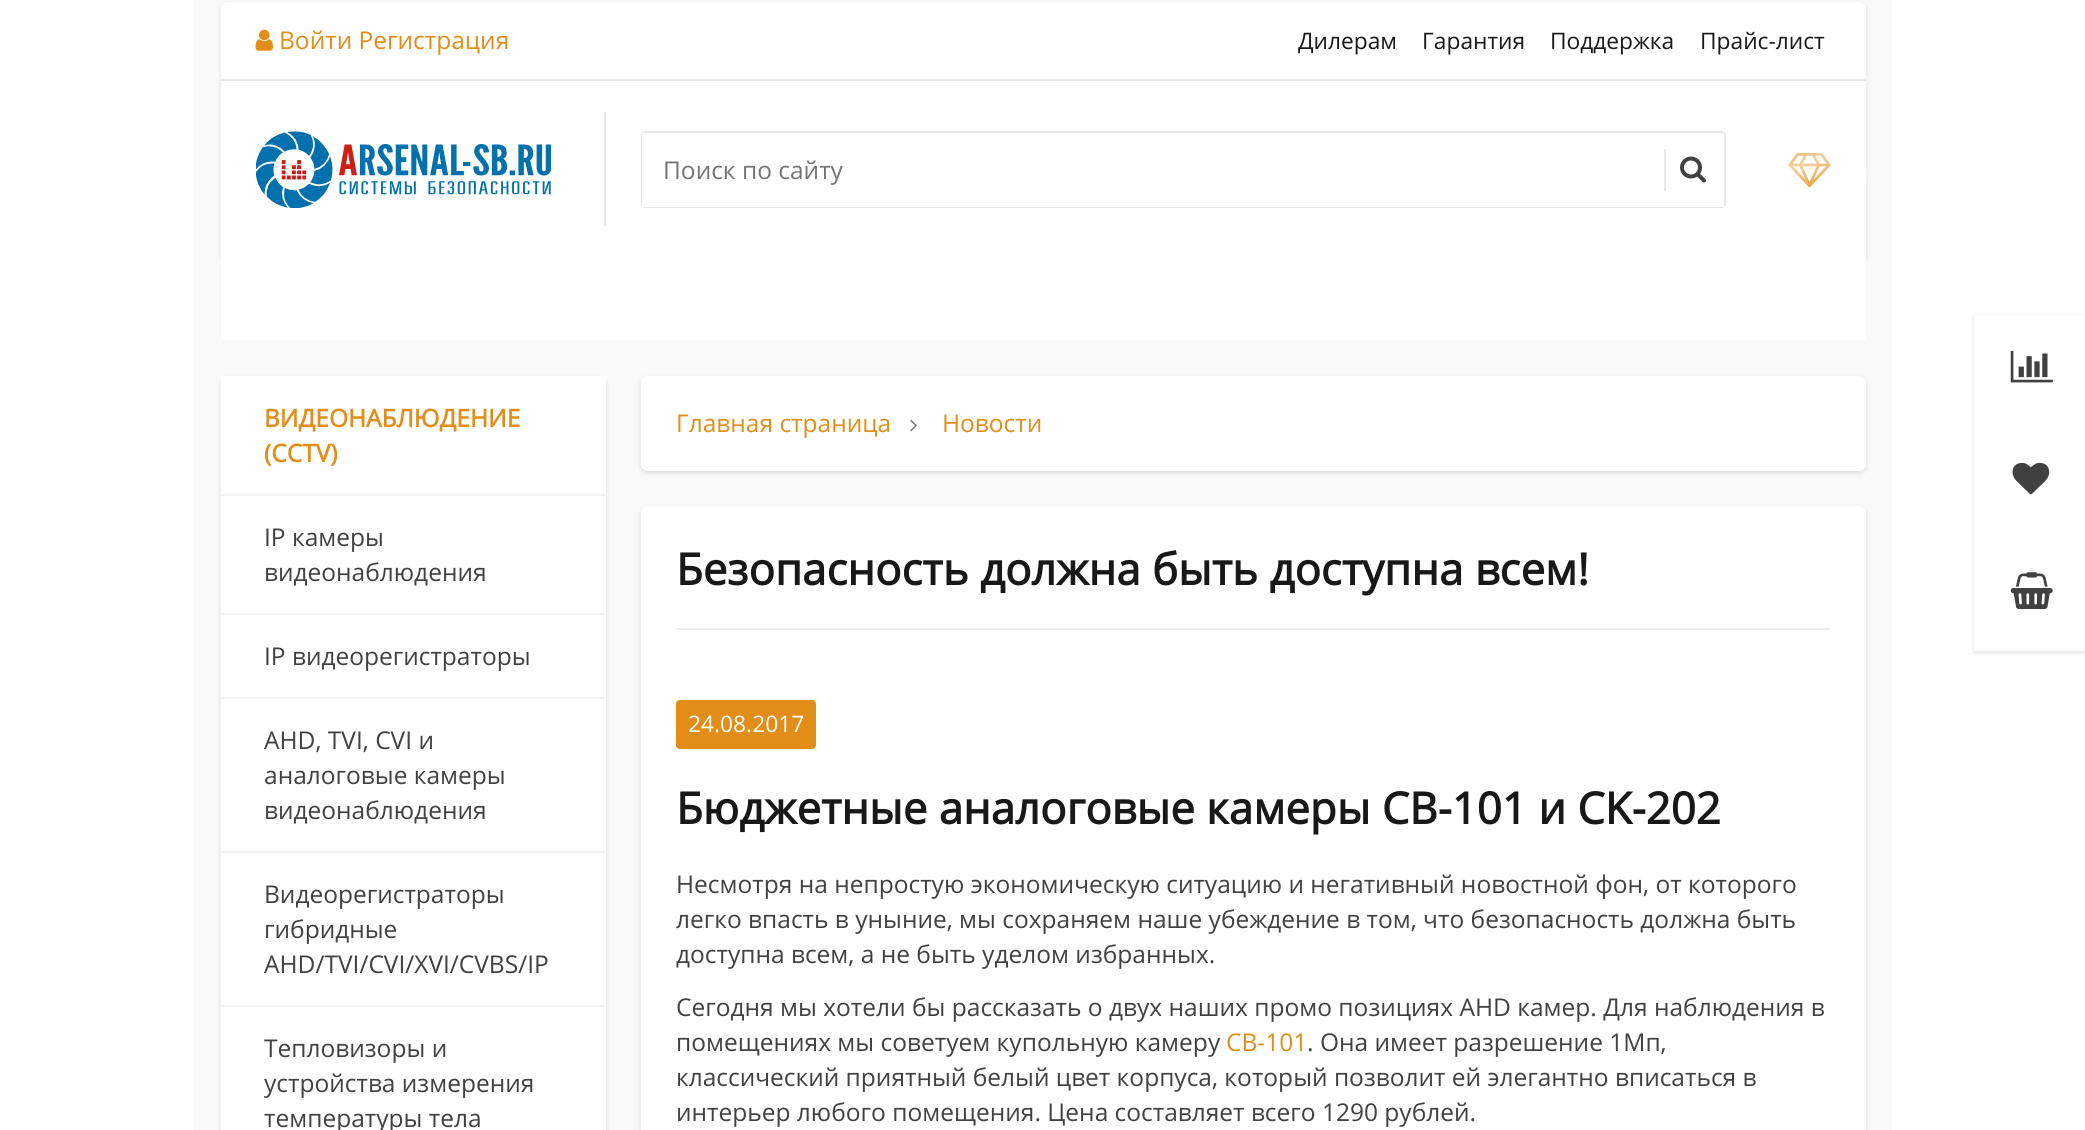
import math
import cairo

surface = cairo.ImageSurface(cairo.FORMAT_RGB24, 2085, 1130)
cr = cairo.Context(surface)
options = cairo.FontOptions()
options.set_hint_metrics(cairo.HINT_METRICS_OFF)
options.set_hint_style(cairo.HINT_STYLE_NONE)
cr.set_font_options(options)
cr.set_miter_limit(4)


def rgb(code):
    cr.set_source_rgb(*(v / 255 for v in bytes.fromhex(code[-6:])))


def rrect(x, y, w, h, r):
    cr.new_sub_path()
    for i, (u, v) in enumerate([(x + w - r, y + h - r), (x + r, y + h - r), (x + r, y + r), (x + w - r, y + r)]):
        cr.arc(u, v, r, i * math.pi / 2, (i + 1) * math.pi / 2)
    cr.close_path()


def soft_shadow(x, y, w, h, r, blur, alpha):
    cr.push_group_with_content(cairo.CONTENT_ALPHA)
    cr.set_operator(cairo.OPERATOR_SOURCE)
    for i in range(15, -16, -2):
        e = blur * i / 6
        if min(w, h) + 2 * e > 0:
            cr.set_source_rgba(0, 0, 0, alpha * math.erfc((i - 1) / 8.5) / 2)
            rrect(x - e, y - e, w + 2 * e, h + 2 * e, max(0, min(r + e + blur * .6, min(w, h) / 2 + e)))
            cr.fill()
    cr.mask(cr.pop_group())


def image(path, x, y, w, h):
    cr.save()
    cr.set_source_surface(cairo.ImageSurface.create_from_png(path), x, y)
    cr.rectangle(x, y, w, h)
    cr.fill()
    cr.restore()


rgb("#ffffff")
cr.paint()
rgb("#faf9f9")
cr.rectangle(194, 0, 1698, 1130)
cr.fill()
rgb("#000000")
soft_shadow(221, 4, 1645, 78, 7, 2.5, 0.12)
rgb("#ffffff")
cr.new_path()
cr.move_to(228, 2)
cr.line_to(1859, 2)
cr.curve_to(1863, 2, 1866, 5, 1866, 9)
cr.line_to(1866, 81)
cr.line_to(221, 81)
cr.line_to(221, 9)
cr.curve_to(221, 5, 224, 2, 228, 2)
cr.close_path()
cr.fill()
rgb("#f0f0f0")
cr.rectangle(221, 79, 1645, 2)
cr.fill()
image("img/1.png", 255, 29, 18, 22)
rgb("#000000")
soft_shadow(221, 82, 1645, 175, 0, 2.5, 0.12)
rgb("#ffffff")
cr.rectangle(221, 81, 1645, 259)
cr.fill()
rgb("#e5e5e5")
cr.rectangle(604, 112, 2, 114)
cr.fill()
image("img/2.png", 256, 131, 295, 77)
rrect(642, 132, 1083, 75, 3)
rgb("#e6e9ea")
cr.stroke()
rgb("#ffffff")
cr.rectangle(642, 133, 1082, 74)
cr.fill()
rgb("#e6e9ea")
cr.rectangle(1664, 149, 2, 42)
cr.fill()
image("img/3.png", 1680, 156, 26, 27)
image("img/4.png", 1788, 153, 43, 35)
gradient = cairo.LinearGradient(1796, 133, 1823, 205)
gradient.add_color_stop_rgba(0, 1, 1, 1, 0)
gradient.add_color_stop_rgba(0.4, 1, 1, 1, 0.6)
gradient.add_color_stop_rgba(0.6, 1, 1, 1, 0.36)
gradient.add_color_stop_rgba(1, 1, 1, 1, 0)
cr.set_source(gradient)
cr.new_path()
cr.move_to(1746, 151)
cr.line_to(1847, 115)
cr.line_to(1873, 187)
cr.line_to(1772, 224)
cr.close_path()
cr.fill()
cr.save()
cr.set_fill_rule(cairo.FILL_RULE_EVEN_ODD)
cr.new_path()
cr.move_to(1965, 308)
cr.line_to(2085, 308)
cr.line_to(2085, 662)
cr.line_to(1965, 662)
cr.close_path()
cr.move_to(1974, 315)
cr.line_to(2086, 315)
cr.line_to(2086, 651)
cr.line_to(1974, 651)
cr.close_path()
cr.clip()
rgb("#000000")
soft_shadow(1974, 317, 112, 336, 0, 2.5, 0.12)
cr.restore()
image("img/5.png", 2010, 350, 43, 33)
image("img/6.png", 2012, 462, 38, 33)
image("img/7.png", 2010, 572, 43, 37)
rgb("#000000")
soft_shadow(221, 378, 385, 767, 7, 2.5, 0.12)
for x, y, w, h, color in [
    (221, 376, 385, 754, "#ffffff"),
    (221, 494, 385, 2, "#f2f2f2"),
    (221, 613, 385, 2, "#f2f2f2"),
    (221, 697, 385, 2, "#f2f2f2"),
    (221, 851, 385, 2, "#f2f2f2"),
    (221, 1005, 385, 2, "#f2f2f2"),
]:
    rgb(color)
    cr.rectangle(x, y, w, h)
    cr.fill()
rgb("#000000")
soft_shadow(641, 378, 1225, 95, 7, 2.5, 0.12)
rgb("#ffffff")
rrect(641, 376, 1225, 95, 7)
cr.fill()
image("img/8.png", 910, 419, 7, 13)
rgb("#000000")
soft_shadow(641, 508, 1225, 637, 7, 2.5, 0.12)
rgb("#ffffff")
rrect(641, 506, 1225, 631, 7)
cr.fill()
rgb("#ededed")
cr.rectangle(676, 628, 1155, 2)
cr.fill()
rgb("#e38d19")
rrect(676, 700, 140, 49, 4)
cr.fill()
cr.select_font_face("Open Sans")
cr.set_font_size(24.5)
cr.move_to(279, 49)
cr.show_text("Войти Регистрация")
cr.set_font_size(22.75)
rgb("#181818")
for x, y, s in [
    (1298, 49, "Дилерам"),
    (1422, 49, "Гарантия"),
    (1550, 49, "Поддержка"),
    (1700, 49, "Прайс-лист"),
]:
    cr.move_to(x, y)
    cr.show_text(s)
cr.set_font_size(24.5)
rgb("#757575")
cr.move_to(663, 179)
cr.show_text("Поиск по сайту")
cr.select_font_face("Open Sans", cairo.FONT_SLANT_NORMAL, cairo.FONT_WEIGHT_BOLD)
rgb("#e38d19")
cr.move_to(264, 427)
cr.show_text("ВИДЕОНАБЛЮДЕНИЕ")
cr.move_to(264, 462)
cr.show_text("(CCTV)")
cr.select_font_face("Open Sans")
rgb("#414141")
for x, y, s in [
    (264, 546, "IP камеры"),
    (264, 581, "видеонаблюдения"),
    (264, 665, "IP видеорегистраторы"),
    (264, 749, "AHD, TVI, CVI и"),
    (264, 784, "аналоговые камеры"),
    (264, 819, "видеонаблюдения"),
    (264, 903, "Видеорегистраторы"),
    (264, 938, "гибридные"),
    (264, 973, "AHD/TVI/CVI/XVI/CVBS/IP"),
    (264, 1057, "Тепловизоры и"),
    (264, 1092, "устройства измерения"),
    (264, 1127, "температуры тела"),
]:
    cr.move_to(x, y)
    cr.show_text(s)
rgb("#e38d19")
cr.move_to(676, 432)
cr.show_text("Главная страница")
cr.move_to(942, 432)
cr.show_text("Новости")
cr.select_font_face("Open Sans", cairo.FONT_SLANT_NORMAL, cairo.FONT_WEIGHT_BOLD)
cr.set_font_size(43.75)
rgb("#181818")
cr.move_to(676, 585)
cr.show_text("Безопасность должна быть доступна всем!")
cr.select_font_face("Open Sans")
cr.set_font_size(22.75)
rgb("#ffffff")
cr.move_to(688, 732)
cr.show_text("24.08.2017")
cr.select_font_face("Open Sans", cairo.FONT_SLANT_NORMAL, cairo.FONT_WEIGHT_BOLD)
cr.set_font_size(43.75)
rgb("#181818")
cr.move_to(676, 824)
cr.show_text("Бюджетные аналоговые камеры CB-101 и CK-202")
cr.select_font_face("Open Sans")
cr.set_font_size(24.5)
rgb("#414141")
for x, y, s in [
    (676, 893, "Несмотря на непростую экономическую ситуацию и негативный новостной фон, от которого"),
    (676, 928, "легко впасть в уныние, мы сохраняем наше убеждение в том, что безопасность должна быть"),
    (676, 963, "доступна всем, а не быть уделом избранных."),
    (676, 1016, "Сегодня мы хотели бы рассказать о двух наших промо позициях AHD камер. Для наблюдения в"),
    (676, 1051, "помещениях мы советуем купольную камеру"),
]:
    cr.move_to(x, y)
    cr.show_text(s)
rgb("#e38d19")
cr.move_to(1226, 1051)
cr.show_text("CB-101")
rgb("#414141")
for x, y, s in [
    (1307, 1051, ". Она имеет разрешение 1Мп,"),
    (676, 1086, "классический приятный белый цвет корпуса, который позволит ей элегантно вписаться в"),
    (676, 1121, "интерьер любого помещения. Цена составляет всего 1290 рублей."),
]:
    cr.move_to(x, y)
    cr.show_text(s)
surface.write_to_png("page.png")
